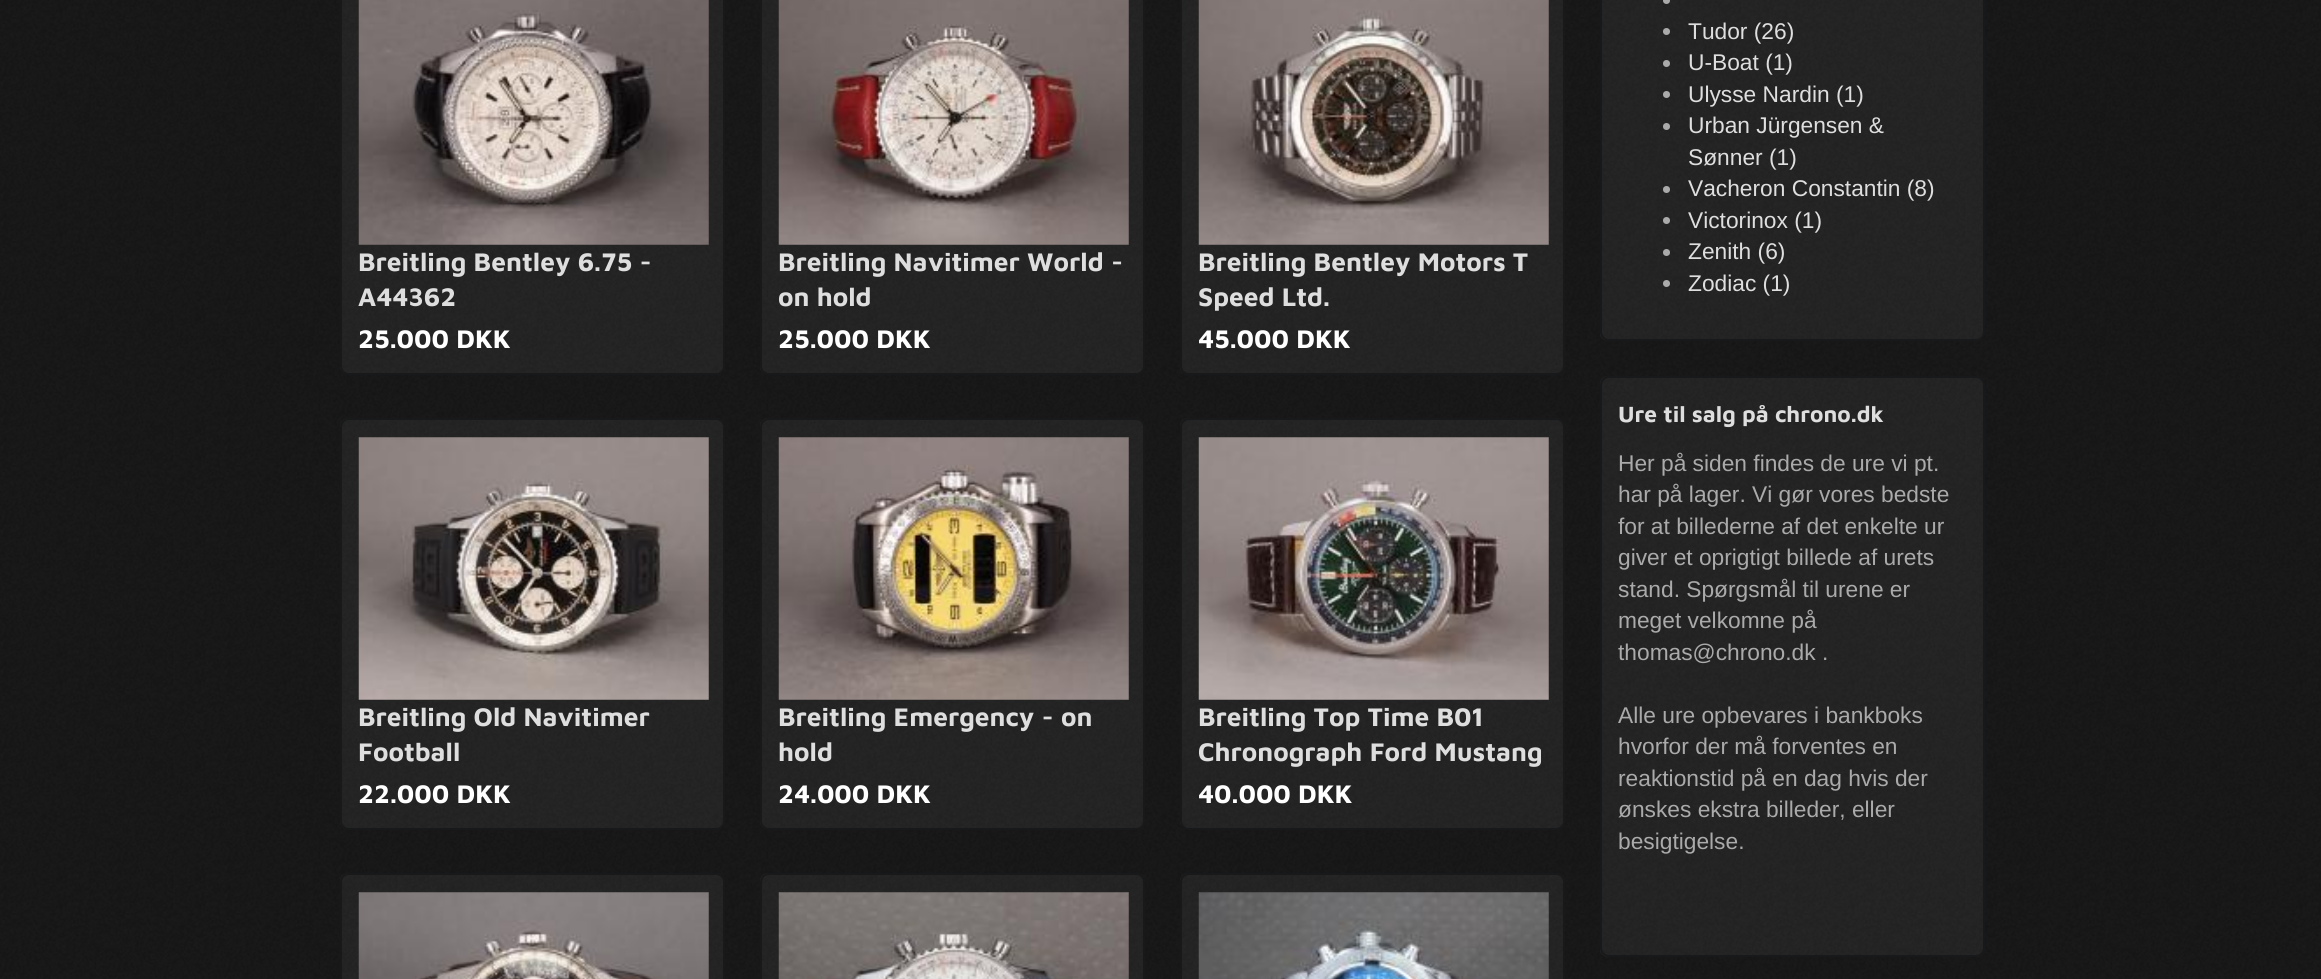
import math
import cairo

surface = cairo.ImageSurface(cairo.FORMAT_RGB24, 2321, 979)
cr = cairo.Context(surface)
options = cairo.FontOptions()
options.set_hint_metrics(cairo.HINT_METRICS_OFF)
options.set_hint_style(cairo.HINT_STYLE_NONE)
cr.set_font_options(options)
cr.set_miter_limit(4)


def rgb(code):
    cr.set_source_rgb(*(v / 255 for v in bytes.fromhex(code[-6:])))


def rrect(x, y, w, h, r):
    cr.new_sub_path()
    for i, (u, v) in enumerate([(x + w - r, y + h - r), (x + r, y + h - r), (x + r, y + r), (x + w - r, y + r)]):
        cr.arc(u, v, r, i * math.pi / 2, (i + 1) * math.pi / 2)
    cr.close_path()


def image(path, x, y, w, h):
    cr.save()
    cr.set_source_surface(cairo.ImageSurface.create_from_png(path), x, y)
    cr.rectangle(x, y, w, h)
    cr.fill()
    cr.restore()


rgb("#ffffff")
cr.paint()
image("img/1.png", 0, 0, 2321, 979)
image("img/2.png", 340, 0, 383, 374)
rrect(341, -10, 383, 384, 8)
rgb("#18191a")
cr.stroke()
image("img/3.png", 358, 0, 351, 245)
image("img/4.png", 760, 0, 383, 374)
rrect(761, -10, 383, 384, 8)
cr.stroke()
image("img/5.png", 778, 0, 351, 245)
image("img/6.png", 1180, 0, 383, 374)
rrect(1181, -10, 383, 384, 8)
cr.stroke()
image("img/7.png", 1198, 0, 351, 245)
image("img/8.png", 340, 418, 383, 411)
rrect(341, 419, 383, 410, 8)
cr.stroke()
image("img/9.png", 358, 437, 351, 263)
image("img/10.png", 760, 418, 383, 411)
rrect(761, 419, 383, 410, 8)
cr.stroke()
image("img/11.png", 778, 437, 351, 263)
image("img/12.png", 1180, 418, 383, 411)
rrect(1181, 419, 383, 410, 8)
cr.stroke()
image("img/13.png", 1198, 437, 351, 263)
image("img/14.png", 340, 873, 383, 106)
rrect(341, 874, 383, 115, 8)
cr.stroke()
image("img/15.png", 358, 892, 351, 87)
image("img/16.png", 760, 873, 383, 106)
rrect(761, 874, 383, 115, 8)
cr.stroke()
image("img/17.png", 778, 892, 351, 87)
image("img/18.png", 1180, 873, 383, 106)
rrect(1181, 874, 383, 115, 8)
cr.stroke()
image("img/19.png", 1198, 892, 351, 87)
image("img/20.png", 1600, 0, 383, 341)
rrect(1601, -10, 383, 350, 8)
cr.stroke()
rgb("#aaaaaa")
cr.arc(1666.5, 0.5, 3.5, 0, 2 * math.pi)
cr.fill()
cr.arc(1666.5, 31.5, 3.5, 0, 2 * math.pi)
cr.fill()
cr.arc(1666.5, 63.5, 3.5, 0, 2 * math.pi)
cr.fill()
cr.arc(1666.5, 94.5, 3.5, 0, 2 * math.pi)
cr.fill()
cr.arc(1666.5, 126.5, 3.5, 0, 2 * math.pi)
cr.fill()
cr.arc(1666.5, 189.5, 3.5, 0, 2 * math.pi)
cr.fill()
cr.arc(1666.5, 220.5, 3.5, 0, 2 * math.pi)
cr.fill()
cr.arc(1666.5, 252.5, 3.5, 0, 2 * math.pi)
cr.fill()
cr.arc(1666.5, 283.5, 3.5, 0, 2 * math.pi)
cr.fill()
image("img/21.png", 1600, 376, 383, 581)
rrect(1601, 377, 383, 579, 8)
rgb("#18191a")
cr.stroke()
cr.select_font_face("Maven Pro", cairo.FONT_SLANT_NORMAL, cairo.FONT_WEIGHT_BOLD)
cr.set_font_size(26.25)
rgb("#dedede")
cr.move_to(358, 271)
cr.show_text("Breitling Bentley 6.75 -")
cr.move_to(358, 306)
cr.show_text("A44362")
rgb("#ffffff")
cr.move_to(358, 348)
cr.show_text("25.000 DKK")
rgb("#dedede")
cr.move_to(778, 271)
cr.show_text("Breitling Navitimer World -")
cr.move_to(778, 306)
cr.show_text("on hold")
rgb("#ffffff")
cr.move_to(778, 348)
cr.show_text("25.000 DKK")
rgb("#dedede")
cr.move_to(1198, 271)
cr.show_text("Breitling Bentley Motors T")
cr.move_to(1198, 306)
cr.show_text("Speed Ltd.")
rgb("#ffffff")
cr.move_to(1198, 348)
cr.show_text("45.000 DKK")
rgb("#dedede")
cr.move_to(358, 726)
cr.show_text("Breitling Old Navitimer")
cr.move_to(358, 761)
cr.show_text("Football")
rgb("#ffffff")
cr.move_to(358, 803)
cr.show_text("22.000 DKK")
rgb("#dedede")
cr.move_to(778, 726)
cr.show_text("Breitling Emergency - on")
cr.move_to(778, 761)
cr.show_text("hold")
rgb("#ffffff")
cr.move_to(778, 803)
cr.show_text("24.000 DKK")
rgb("#dedede")
cr.move_to(1198, 726)
cr.show_text("Breitling Top Time B01")
cr.move_to(1198, 761)
cr.show_text("Chronograph Ford Mustang")
rgb("#ffffff")
cr.move_to(1198, 803)
cr.show_text("40.000 DKK")
cr.select_font_face("Liberation Sans")
cr.set_font_size(22.75)
rgb("#dedede")
for x, y, s in [
    (1688, 39, "Tudor (26)"),
    (1688, 70, "U-Boat (1)"),
    (1688, 102, "Ulysse Nardin (1)"),
    (1688, 133, "Urban Jürgensen &"),
    (1688, 165, "Sønner (1)"),
    (1688, 196, "Vacheron Constantin (8)"),
    (1688, 228, "Victorinox (1)"),
    (1688, 259, "Zenith (6)"),
    (1688, 291, "Zodiac (1)"),
]:
    cr.move_to(x, y)
    cr.show_text(s)
cr.select_font_face("Maven Pro", cairo.FONT_SLANT_NORMAL, cairo.FONT_WEIGHT_BOLD)
cr.move_to(1618, 422)
cr.show_text("Ure til salg på chrono.dk")
cr.select_font_face("Liberation Sans")
rgb("#aaaaaa")
for x, y, s in [
    (1618, 471, "Her på siden findes de ure vi pt."),
    (1618, 502, "har på lager. Vi gør vores bedste"),
    (1618, 534, "for at billederne af det enkelte ur"),
    (1618, 565, "giver et oprigtigt billede af urets"),
    (1618, 597, "stand. Spørgsmål til urene er"),
    (1618, 628, "meget velkomne på"),
    (1618, 660, "thomas@chrono.dk ."),
    (1618, 723, "Alle ure opbevares i bankboks"),
    (1618, 754, "hvorfor der må forventes en"),
    (1618, 786, "reaktionstid på en dag hvis der"),
    (1618, 817, "ønskes ekstra billeder, eller"),
    (1618, 849, "besigtigelse."),
]:
    cr.move_to(x, y)
    cr.show_text(s)
surface.write_to_png("page.png")
